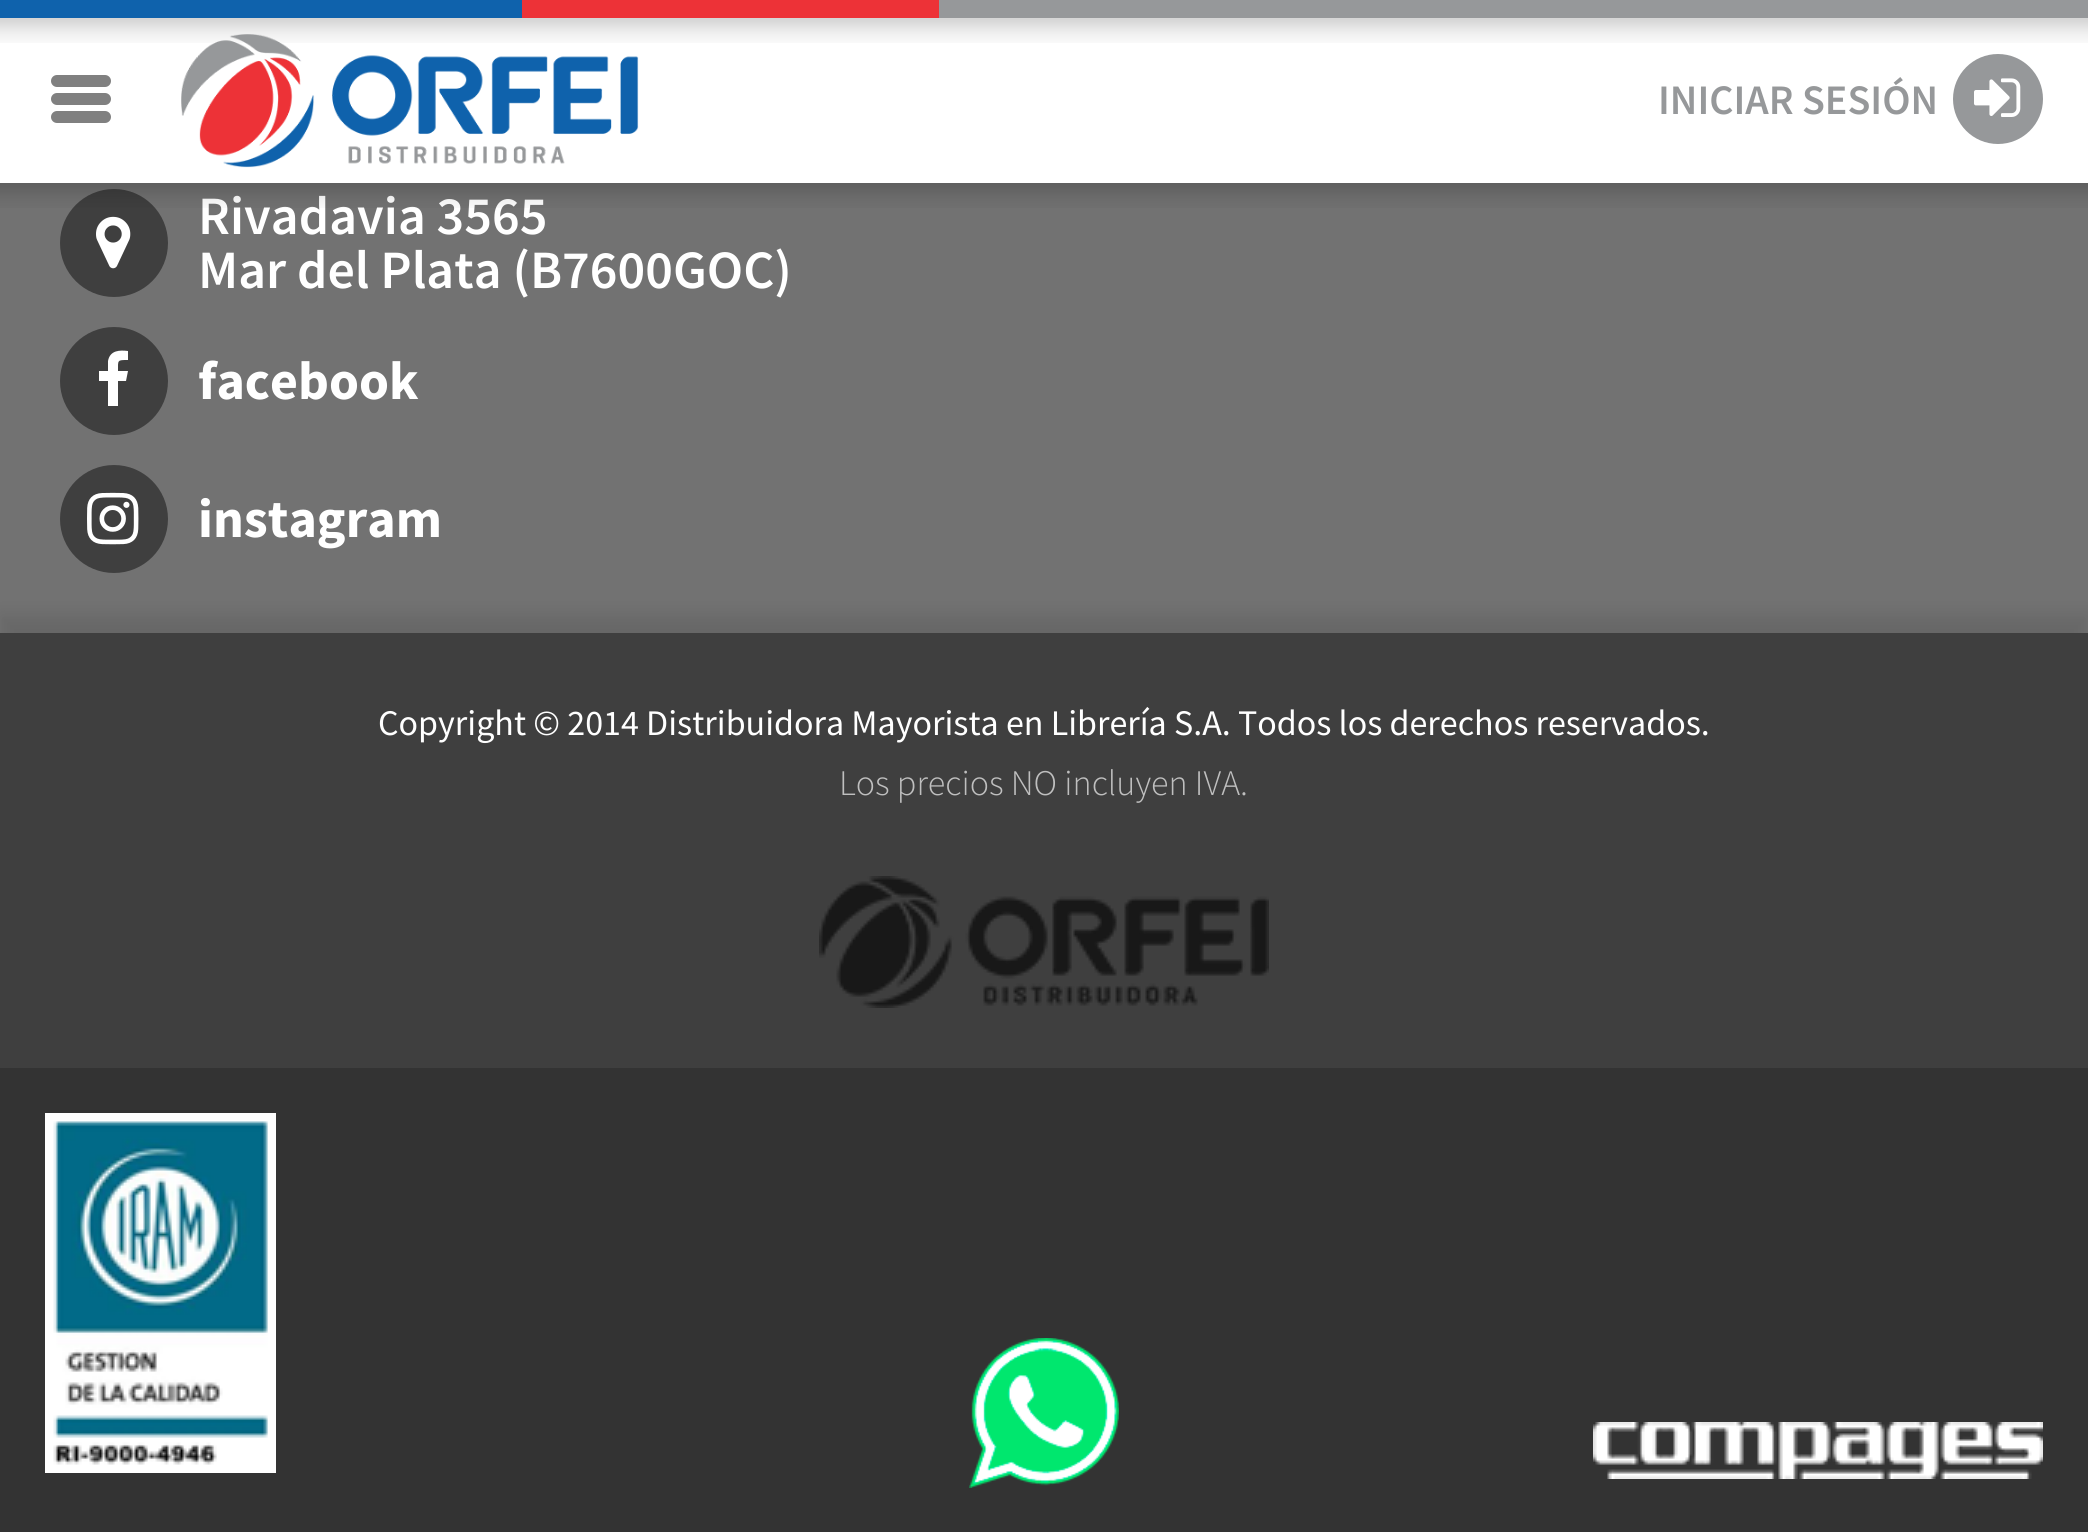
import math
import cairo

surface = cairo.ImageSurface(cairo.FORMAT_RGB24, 2088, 1532)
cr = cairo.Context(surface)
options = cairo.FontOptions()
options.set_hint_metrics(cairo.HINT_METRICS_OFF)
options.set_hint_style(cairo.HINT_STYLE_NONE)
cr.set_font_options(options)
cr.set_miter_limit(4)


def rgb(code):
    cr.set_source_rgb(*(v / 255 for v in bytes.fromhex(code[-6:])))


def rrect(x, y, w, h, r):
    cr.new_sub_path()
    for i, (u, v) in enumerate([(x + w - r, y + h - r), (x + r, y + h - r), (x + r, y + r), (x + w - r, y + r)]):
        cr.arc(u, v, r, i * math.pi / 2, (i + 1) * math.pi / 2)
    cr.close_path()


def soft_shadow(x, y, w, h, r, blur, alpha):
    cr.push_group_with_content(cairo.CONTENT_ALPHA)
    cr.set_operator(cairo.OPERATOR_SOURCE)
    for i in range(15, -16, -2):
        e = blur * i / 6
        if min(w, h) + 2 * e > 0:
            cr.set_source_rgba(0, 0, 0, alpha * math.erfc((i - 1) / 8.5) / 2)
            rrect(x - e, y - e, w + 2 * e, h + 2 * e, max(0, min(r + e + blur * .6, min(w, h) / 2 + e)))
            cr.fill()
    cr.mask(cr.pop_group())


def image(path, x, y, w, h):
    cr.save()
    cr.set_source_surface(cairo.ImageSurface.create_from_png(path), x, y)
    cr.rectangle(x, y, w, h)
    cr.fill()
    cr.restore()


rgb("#727272")
cr.paint()
for x, y, w, h, color in [
    (0, 18, 2088, 165, "#ffffff"),
    (522, 0, 417, 18, "#ed3237"),
    (0, 0, 522, 18, "#0f62ac"),
    (939, 0, 1149, 18, "#96989a"),
]:
    rgb(color)
    cr.rectangle(x, y, w, h)
    cr.fill()
image("img/1.png", 0, 18, 2088, 25)
rgb("#808080")
rrect(51, 75, 60, 12, 6)
cr.fill()
rrect(51, 93, 60, 12, 6)
cr.fill()
rrect(51, 111, 60, 12, 6)
cr.fill()
image("img/2.png", 181, 34, 458, 134)
rgb("#96989a")
cr.arc(1998, 99, 45, 0, 2 * math.pi)
cr.fill()
image("img/3.png", 1974, 78, 47, 39)
rgb("#3f3f3f")
cr.arc(114, 243, 54, 0, 2 * math.pi)
cr.fill()
image("img/5.png", 96, 216, 35, 53)
cr.arc(114, 381, 54, 0, 2 * math.pi)
cr.fill()
rgb("#ffffff")
cr.new_path()
cr.move_to(128, 351)
cr.line_to(128, 360)
cr.curve_to(117, 360, 118, 360, 118, 371)
cr.line_to(128, 371)
cr.line_to(126, 381)
cr.line_to(118, 381)
cr.line_to(118, 406)
cr.line_to(108, 406)
cr.line_to(108, 381)
cr.line_to(99, 381)
cr.line_to(99, 371)
cr.line_to(108, 371)
cr.line_to(108, 361)
cr.curve_to(110, 350, 120, 350, 128, 351)
cr.close_path()
cr.fill()
rgb("#3f3f3f")
cr.arc(114, 519, 54, 0, 2 * math.pi)
cr.fill()
image("img/6.png", 87, 492, 52, 53)
rgb("#000000")
soft_shadow(0, 615, 2088, 900, 0, 9, 0.1)
rgb("#333333")
cr.rectangle(0, 1068, 2088, 464)
cr.fill()
rgb("#3f3f3f")
cr.rectangle(0, 633, 2088, 435)
cr.fill()
image("img/7.png", 819, 876, 450, 132)
image("img/8.png", 45, 1113, 231, 360)
image("img/9.png", 1593, 1422, 450, 57)
image("img/10.png", 969, 1338, 150, 150)
cr.select_font_face("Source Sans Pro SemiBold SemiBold")
cr.set_font_size(42)
rgb("#96989a")
cr.move_to(1658, 114)
cr.show_text("INICIAR SESIÓN")
cr.set_font_size(54)
rgb("#ffffff")
cr.move_to(198, 234)
cr.show_text("Rivadavia 3565")
image("img/4.png", 0, 183, 2088, 25)
cr.move_to(198, 288)
cr.show_text("Mar del Plata (B7600GOC)")
cr.select_font_face("Source Sans Pro", cairo.FONT_SLANT_NORMAL, cairo.FONT_WEIGHT_BOLD)
cr.move_to(198, 399)
cr.show_text("facebook")
cr.move_to(198, 537)
cr.show_text("instagram")
cr.select_font_face("Source Sans Pro")
cr.set_font_size(36)
cr.move_to(378, 735)
cr.show_text("Copyright © 2014 Distribuidora Mayorista en Librería S.A. Todos los derechos reservados.")
cr.select_font_face("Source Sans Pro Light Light")
rgb("#bfbfbf")
cr.move_to(839, 795)
cr.show_text("Los precios NO incluyen IVA.")
surface.write_to_png("page.png")
